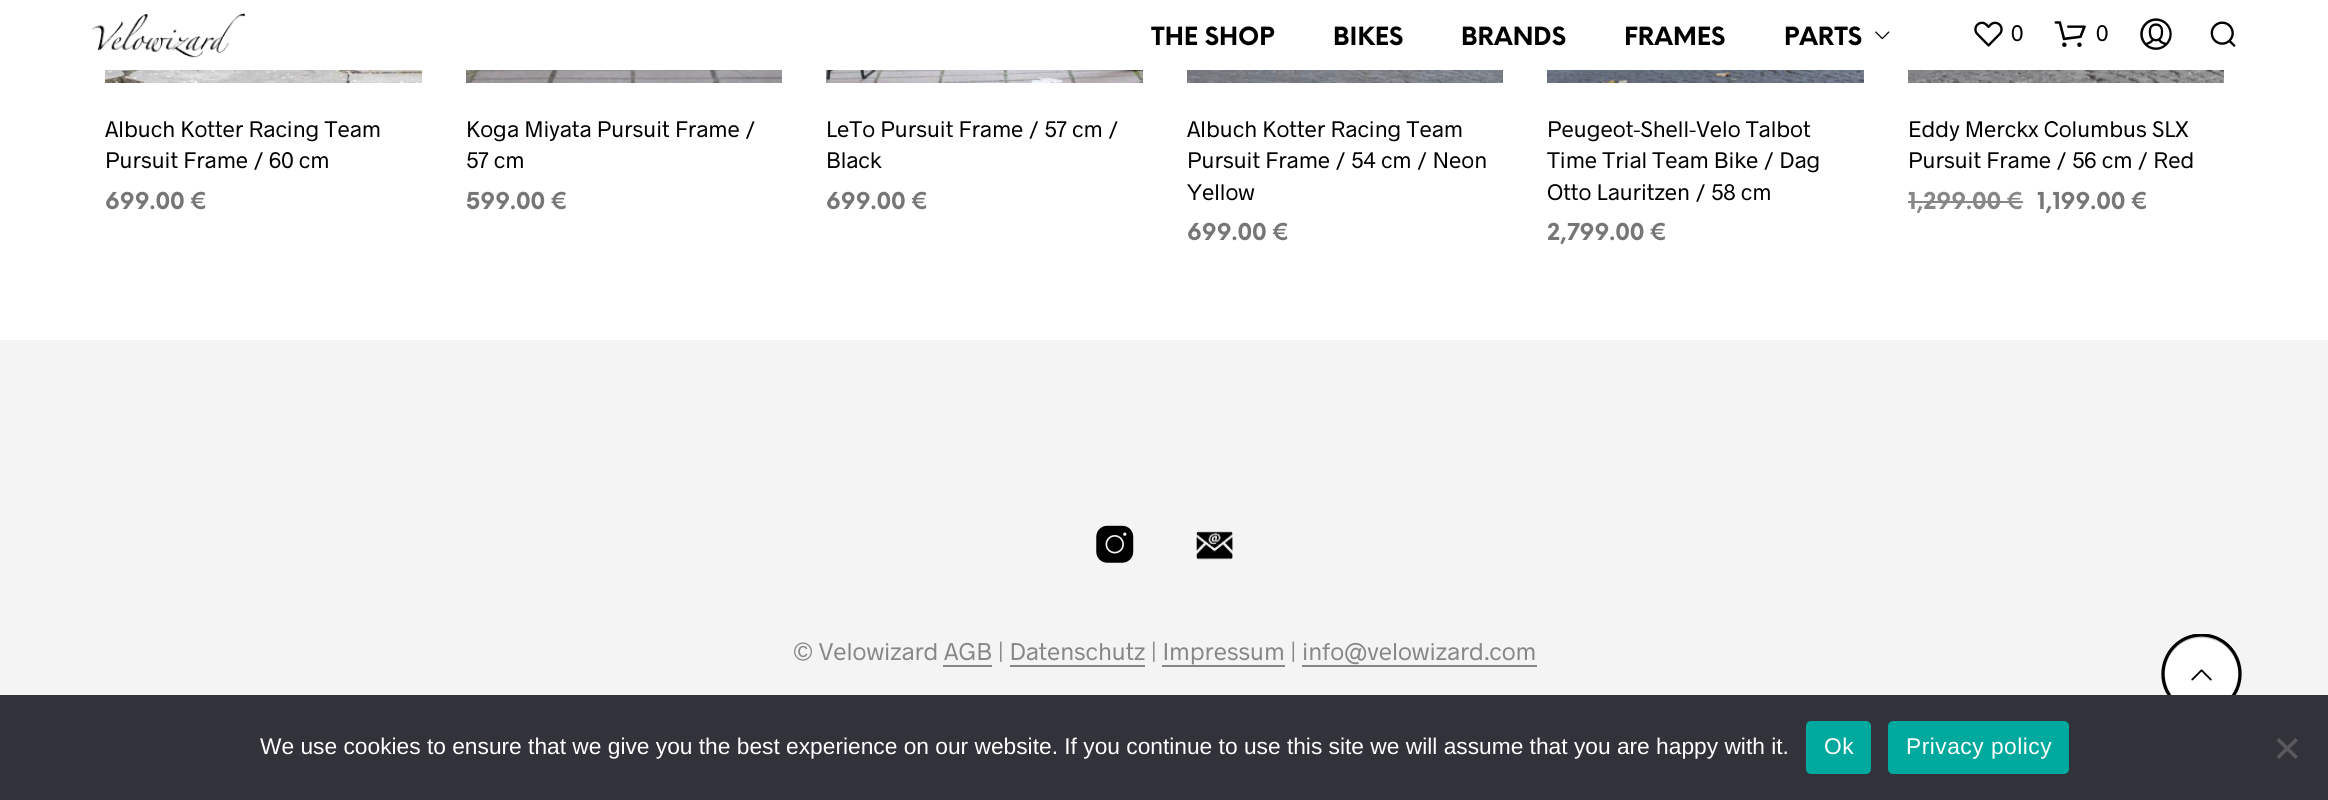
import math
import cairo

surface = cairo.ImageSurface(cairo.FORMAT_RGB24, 2328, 800)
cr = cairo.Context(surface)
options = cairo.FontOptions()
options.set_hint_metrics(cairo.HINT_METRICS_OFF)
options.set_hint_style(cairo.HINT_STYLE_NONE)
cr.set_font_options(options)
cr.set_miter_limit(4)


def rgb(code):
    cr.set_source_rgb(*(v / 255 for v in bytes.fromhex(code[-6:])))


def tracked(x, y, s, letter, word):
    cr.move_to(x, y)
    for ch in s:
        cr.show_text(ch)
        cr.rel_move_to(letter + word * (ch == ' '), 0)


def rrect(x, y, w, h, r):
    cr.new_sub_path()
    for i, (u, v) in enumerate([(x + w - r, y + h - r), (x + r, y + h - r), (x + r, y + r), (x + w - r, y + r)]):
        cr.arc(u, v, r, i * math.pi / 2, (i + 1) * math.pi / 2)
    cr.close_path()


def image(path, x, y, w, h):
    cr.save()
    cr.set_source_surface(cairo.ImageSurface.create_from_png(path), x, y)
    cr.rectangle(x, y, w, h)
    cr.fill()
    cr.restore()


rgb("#ffffff")
cr.paint()
image("img/1.png", 92, 13, 153, 45)
image("img/2.png", 1875, 31, 15, 9)
image("img/3.png", 1974, 21, 29, 26)
image("img/4.png", 2054, 21, 32, 26)
image("img/5.png", 2140, 18, 32, 32)
image("img/6.png", 2210, 21, 26, 26)
image("img/7.png", 105, 70, 317, 13)
image("img/8.png", 466, 70, 316, 13)
image("img/9.png", 826, 70, 317, 13)
image("img/10.png", 1187, 70, 316, 13)
image("img/11.png", 1547, 70, 317, 13)
image("img/12.png", 1908, 70, 316, 13)
for x, y, w, h, color in [
    (1908, 201, 99, 2, "#878787"),
    (2007, 201, 16, 2, "#878787"),
    (0, 340, 2328, 355, "#f4f4f4"),
]:
    rgb(color)
    cr.rectangle(x, y, w, h)
    cr.fill()
image("img/13.png", 1096, 525, 38, 38)
image("img/14.png", 1196, 531, 37, 29)
for x, y, w, h, color in [
    (943, 665, 49, 2, "#868686"),
    (1010, 665, 135, 2, "#868686"),
    (1162, 665, 123, 2, "#868686"),
    (1302, 665, 235, 2, "#868686"),
]:
    rgb(color)
    cr.rectangle(x, y, w, h)
    cr.fill()
rgb("#ffffff")
rrect(2161, 634, 81, 80, 40)
cr.fill()
rrect(2163, 636, 77, 76, 38)
cr.set_source_rgba(0, 0, 0, 0.2)
cr.set_line_width(4)
cr.stroke()
cr.save()
cr.rectangle(2161, 634, 81, 80)
cr.clip()
cr.new_path()
cr.move_to(2201.5, 635)
cr.curve_to(2223, 635, 2240, 652.5, 2240, 674)
cr.curve_to(2240, 695, 2223, 712.5, 2201.5, 712.5)
cr.curve_to(2180, 712.5, 2163, 695, 2163, 674)
cr.curve_to(2163, 652.5, 2180, 635, 2201.5, 635)
rgb("#000000")
cr.set_line_width(3.2)
cr.stroke()
cr.restore()
image("img/15.png", 2191, 669, 21, 12)
rgb("#32323a")
cr.rectangle(0, 695, 2328, 105)
cr.fill()
rgb("#00a99d")
rrect(1806, 721, 65, 53, 5)
cr.fill()
rrect(1888, 721, 181, 53, 5)
cr.fill()
rgb("#59595d")
cr.new_path()
cr.move_to(2295.5, 738)
cr.line_to(2298, 740.5)
cr.line_to(2279, 759)
cr.line_to(2276.5, 756.5)
cr.close_path()
cr.fill()
cr.new_path()
cr.move_to(2276.5, 740.5)
cr.line_to(2279, 738)
cr.line_to(2298, 756.5)
cr.line_to(2295.5, 759)
cr.close_path()
cr.fill()
cr.select_font_face("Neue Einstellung", cairo.FONT_SLANT_NORMAL, cairo.FONT_WEIGHT_BOLD)
cr.set_font_size(24.5)
rgb("#000000")
for x, y, s in [
    (1151, 45, "THE SHOP"),
    (1333, 45, "BIKES"),
    (1461, 45, "BRANDS"),
    (1624, 45, "FRAMES"),
    (1784, 45, "PARTS"),
]:
    cr.move_to(x, y)
    cr.show_text(s)
cr.select_font_face("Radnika")
cr.set_font_size(22.75)
for x, y, s in [
    (2011, 41, "0"),
    (2096, 41, "0"),
    (105, 137, "Albuch Kotter Racing Team"),
    (105, 168, "Pursuit Frame / 60 cm"),
]:
    cr.move_to(x, y)
    cr.show_text(s)
cr.select_font_face("Neue Einstellung", cairo.FONT_SLANT_NORMAL, cairo.FONT_WEIGHT_BOLD)
rgb("#767676")
cr.move_to(105, 209)
cr.show_text("699.00 €")
cr.select_font_face("Radnika")
rgb("#000000")
cr.move_to(466, 137)
cr.show_text("Koga Miyata Pursuit Frame /")
cr.move_to(466, 168)
cr.show_text("57 cm")
cr.select_font_face("Neue Einstellung", cairo.FONT_SLANT_NORMAL, cairo.FONT_WEIGHT_BOLD)
rgb("#767676")
cr.move_to(466, 209)
cr.show_text("599.00 €")
cr.select_font_face("Radnika")
rgb("#000000")
cr.move_to(826, 137)
cr.show_text("LeTo Pursuit Frame / 57 cm /")
cr.move_to(826, 168)
cr.show_text("Black")
cr.select_font_face("Neue Einstellung", cairo.FONT_SLANT_NORMAL, cairo.FONT_WEIGHT_BOLD)
rgb("#767676")
cr.move_to(826, 209)
cr.show_text("699.00 €")
cr.select_font_face("Radnika")
rgb("#000000")
for x, y, s in [
    (1187, 137, "Albuch Kotter Racing Team"),
    (1187, 168, "Pursuit Frame / 54 cm / Neon"),
    (1187, 200, "Yellow"),
]:
    cr.move_to(x, y)
    cr.show_text(s)
cr.select_font_face("Neue Einstellung", cairo.FONT_SLANT_NORMAL, cairo.FONT_WEIGHT_BOLD)
rgb("#767676")
cr.move_to(1187, 240)
cr.show_text("699.00 €")
cr.select_font_face("Radnika")
rgb("#000000")
for x, y, s in [
    (1547, 137, "Peugeot-Shell-Velo Talbot"),
    (1547, 168, "Time Trial Team Bike / Dag"),
    (1547, 200, "Otto Lauritzen / 58 cm"),
]:
    cr.move_to(x, y)
    cr.show_text(s)
cr.select_font_face("Neue Einstellung", cairo.FONT_SLANT_NORMAL, cairo.FONT_WEIGHT_BOLD)
rgb("#767676")
cr.move_to(1547, 240)
cr.show_text("2,799.00 €")
cr.select_font_face("Radnika")
rgb("#000000")
cr.move_to(1908, 137)
cr.show_text("Eddy Merckx Columbus SLX")
cr.move_to(1908, 168)
cr.show_text("Pursuit Frame / 56 cm / Red")
cr.select_font_face("Neue Einstellung", cairo.FONT_SLANT_NORMAL, cairo.FONT_WEIGHT_BOLD)
rgb("#878787")
cr.move_to(1908, 209)
cr.show_text("1,299.00")
cr.move_to(2007, 209)
cr.show_text("€")
rgb("#767676")
cr.move_to(2037, 209)
cr.show_text("1,199.00 €")
cr.select_font_face("Radnika")
cr.set_font_size(24.5)
rgb("#878787")
cr.move_to(793, 660)
cr.show_text("© Velowizard AGB | Datenschutz | Impressum | info@velowizard.com")
cr.select_font_face("Liberation Sans")
cr.set_font_size(22.75)
rgb("#ffffff")
cr.move_to(260, 754)
cr.show_text("We use cookies to ensure that we give you the best experience on our website. If you continue to use this site we will assume that you are happy with it.")
tracked(1824, 754, "Ok", 0.5, 0)
tracked(1906, 754, "Privacy policy", 0.5, 0)
surface.write_to_png("page.png")
